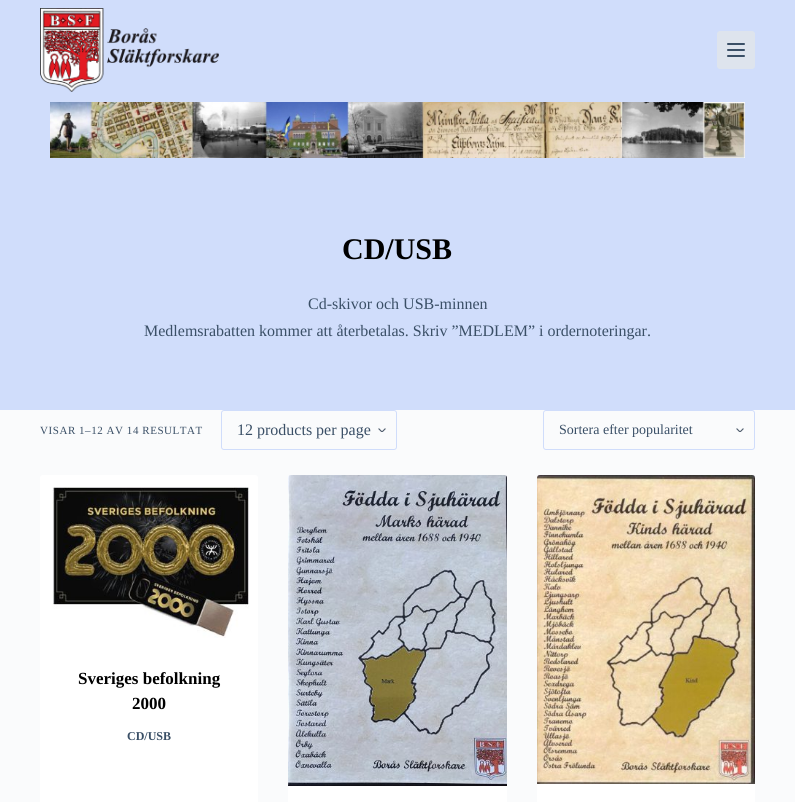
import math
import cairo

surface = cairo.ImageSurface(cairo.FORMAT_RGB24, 795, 802)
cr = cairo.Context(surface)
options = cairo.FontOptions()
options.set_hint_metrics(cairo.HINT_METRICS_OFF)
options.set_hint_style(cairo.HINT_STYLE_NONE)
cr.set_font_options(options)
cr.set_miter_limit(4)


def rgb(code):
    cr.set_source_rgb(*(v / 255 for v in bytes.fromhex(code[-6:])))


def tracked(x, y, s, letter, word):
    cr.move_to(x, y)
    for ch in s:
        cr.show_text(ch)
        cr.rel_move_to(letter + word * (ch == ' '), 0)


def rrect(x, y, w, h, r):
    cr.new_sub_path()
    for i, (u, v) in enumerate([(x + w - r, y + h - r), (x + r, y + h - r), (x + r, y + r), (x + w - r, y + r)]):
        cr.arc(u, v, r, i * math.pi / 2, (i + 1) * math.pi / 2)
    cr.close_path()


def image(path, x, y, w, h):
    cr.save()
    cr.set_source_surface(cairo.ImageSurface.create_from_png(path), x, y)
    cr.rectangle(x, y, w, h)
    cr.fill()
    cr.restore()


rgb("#fafbfc")
cr.paint()
rgb("#d0ddfb")
cr.rectangle(0, 0, 795, 410)
cr.fill()
image("img/1.png", 40, 8, 179, 84)
rgb("#dee4ed")
rrect(717, 31, 38, 38, 3)
cr.fill()
rgb("#3a4f66")
rrect(727, 43, 18, 2, 1)
cr.fill()
rrect(727, 49, 18, 2, 1)
cr.fill()
rrect(727, 55, 18, 2, 1)
cr.fill()
image("img/2.png", 50, 102, 695, 56)
image("img/3.png", 378, 428, 8, 4)
rrect(221.5, 410.5, 175, 39, 2.5)
rgb("#d0ddfb")
cr.set_line_width(1)
cr.stroke()
image("img/3.png", 736, 428, 8, 4)
rrect(543.5, 410.5, 211, 39, 2.5)
cr.stroke()
rgb("#ffffff")
rrect(40, 475, 218, 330, 3)
cr.fill()
image("img/4.png", 52, 487, 197, 151)
rrect(288, 475, 219, 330, 3)
cr.fill()
image("img/5.png", 288, 475, 219, 311)
rrect(537, 475, 218, 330, 3)
cr.fill()
image("img/6.png", 537, 475, 218, 309)
cr.select_font_face("Liberation Serif", cairo.FONT_SLANT_NORMAL, cairo.FONT_WEIGHT_BOLD)
cr.set_font_size(30)
rgb("#000000")
cr.move_to(342, 259)
cr.show_text("CD/USB")
cr.select_font_face("Liberation Serif")
cr.set_font_size(16)
rgb("#3a4f66")
cr.move_to(308, 309)
cr.show_text("Cd-skivor och USB-minnen")
cr.move_to(144, 336)
cr.show_text("Medlemsrabatten kommer att återbetalas. Skriv ”MEDLEM” i ordernoteringar.")
cr.set_font_size(11)
tracked(40, 434, "VISAR 1–12 AV 14 RESULTAT", 0.55, 0)
cr.set_font_size(16)
cr.move_to(237, 435)
cr.show_text("12 products per page")
cr.set_font_size(14)
cr.move_to(559, 434)
cr.show_text("Sortera efter popularitet")
cr.select_font_face("Liberation Serif", cairo.FONT_SLANT_NORMAL, cairo.FONT_WEIGHT_BOLD)
cr.set_font_size(17)
rgb("#000000")
cr.move_to(78, 684)
cr.show_text("Sveriges befolkning")
cr.move_to(132, 709)
cr.show_text("2000")
cr.set_font_size(12)
rgb("#3a4f66")
cr.move_to(127, 740)
cr.show_text("CD/USB")
surface.write_to_png("page.png")
